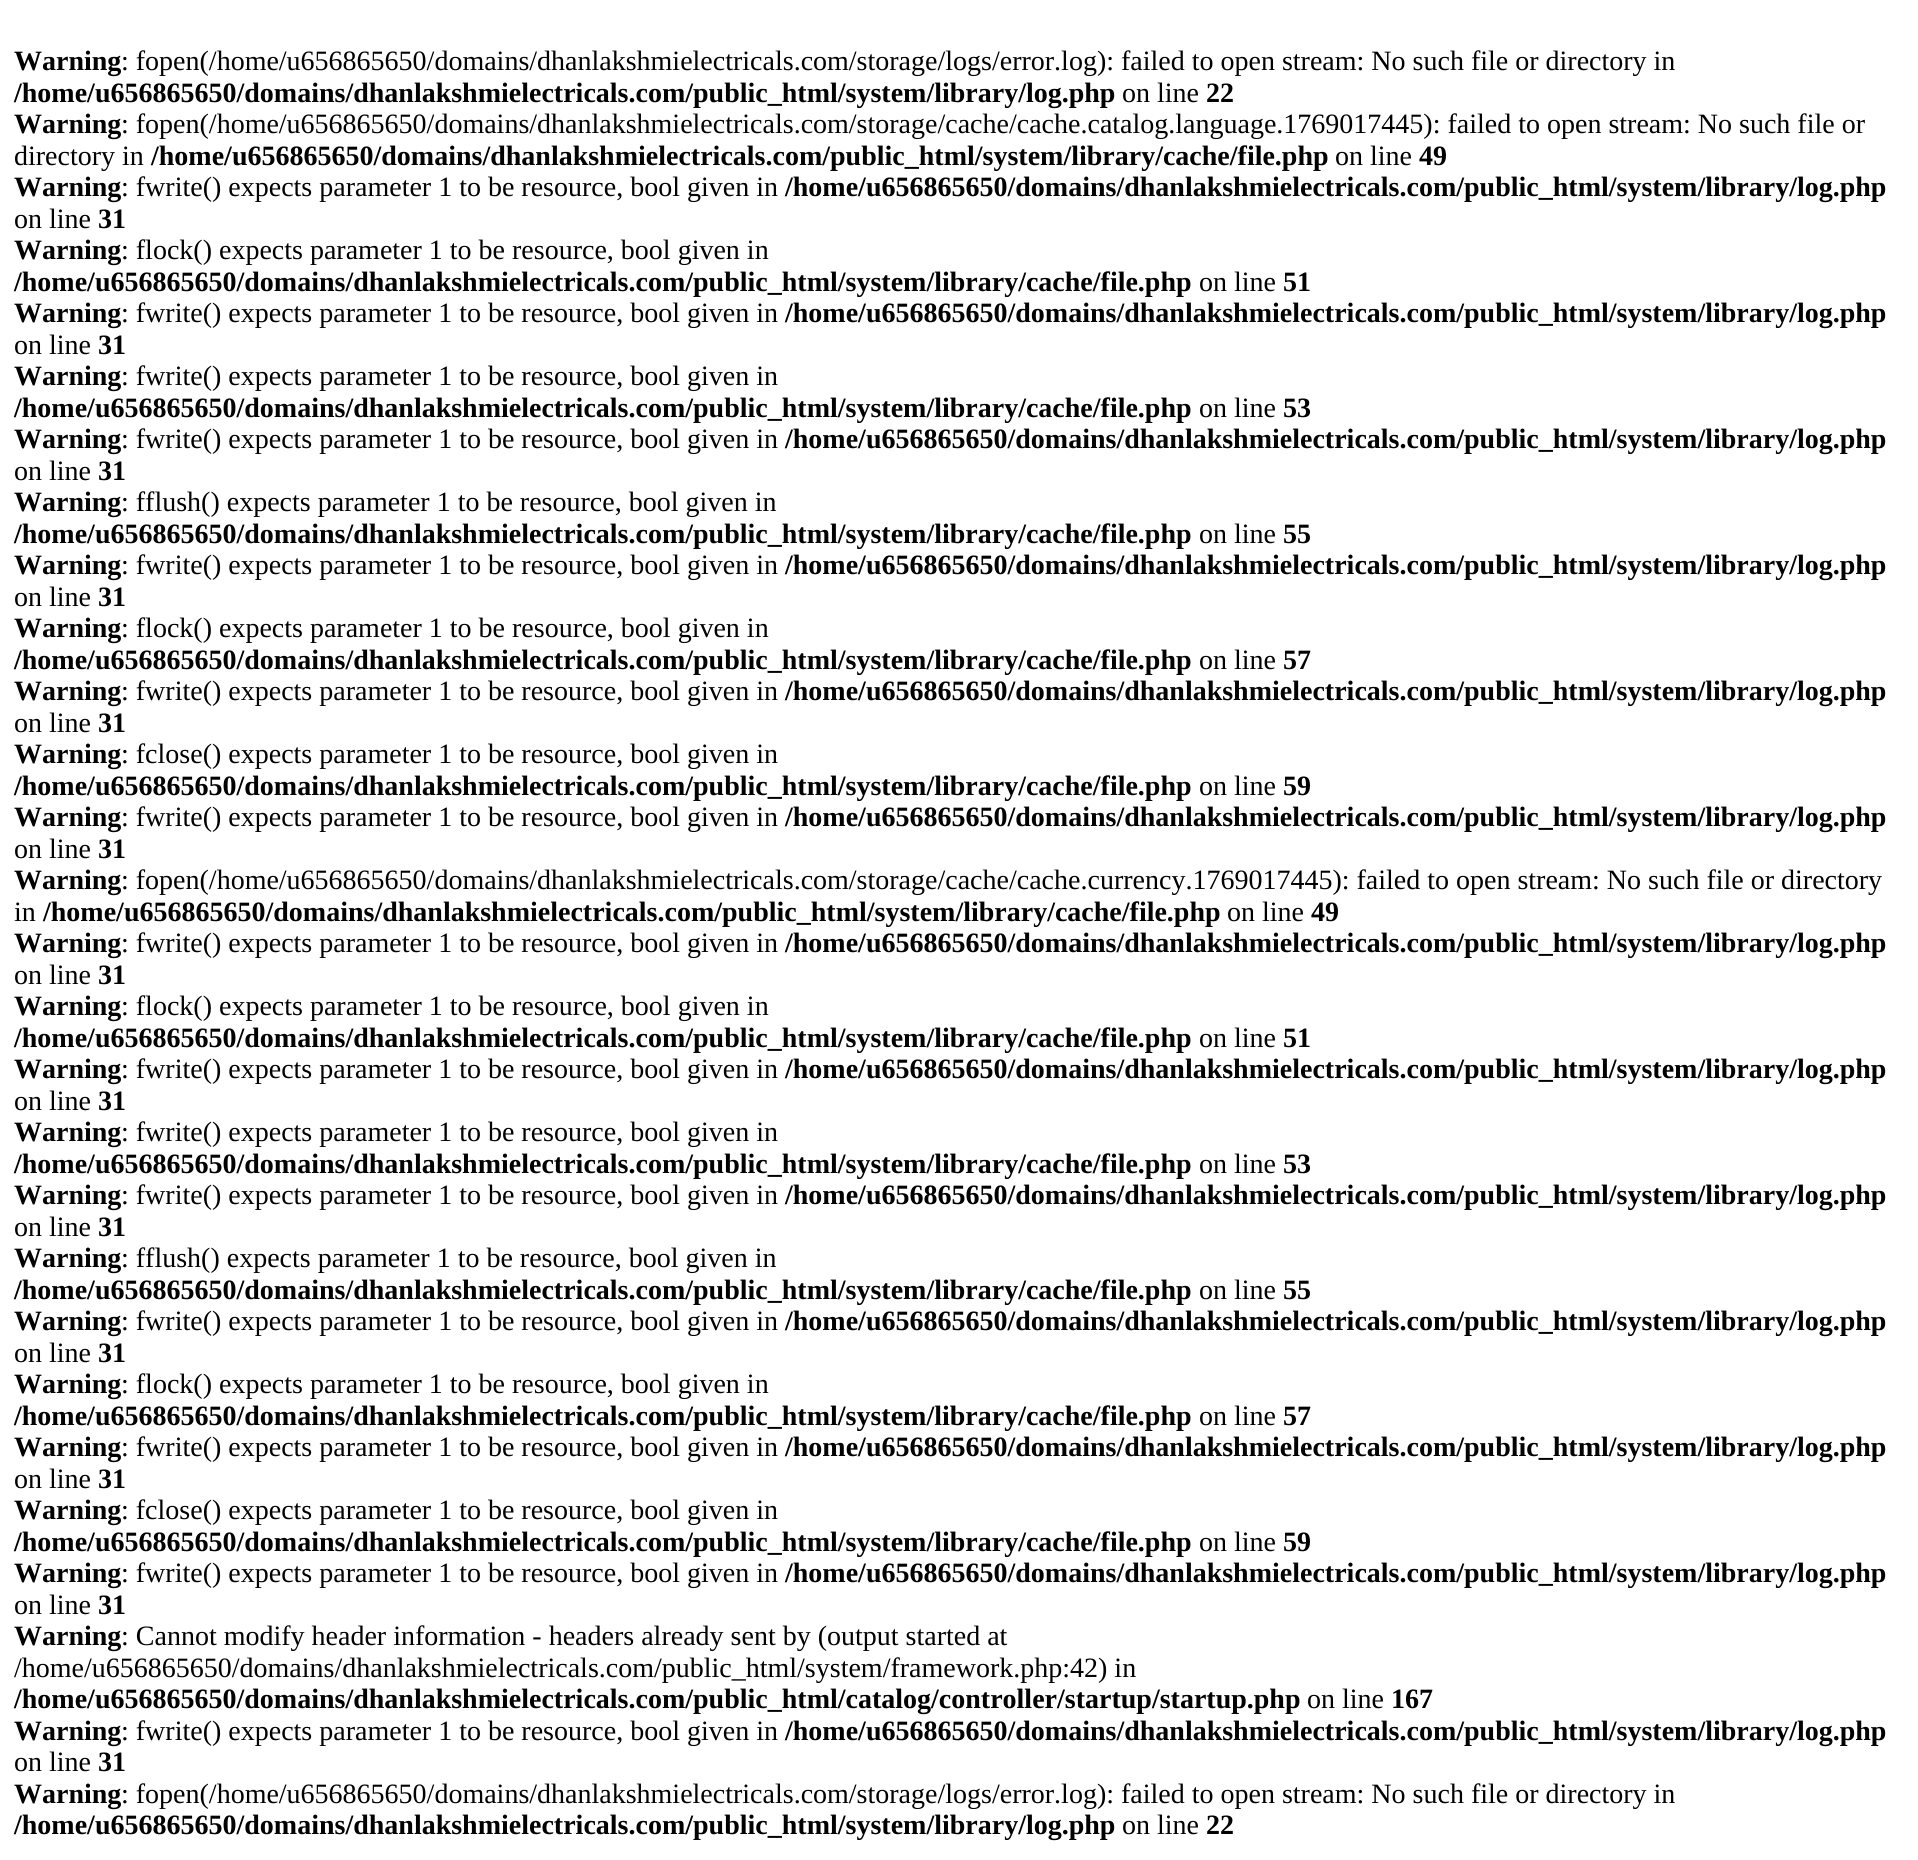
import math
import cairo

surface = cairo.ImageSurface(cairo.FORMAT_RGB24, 1918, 1860)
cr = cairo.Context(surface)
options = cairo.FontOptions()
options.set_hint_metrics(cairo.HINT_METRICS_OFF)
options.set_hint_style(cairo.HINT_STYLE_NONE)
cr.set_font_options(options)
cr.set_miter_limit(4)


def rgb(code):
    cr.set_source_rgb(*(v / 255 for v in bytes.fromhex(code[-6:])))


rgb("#ffffff")
cr.paint()
cr.select_font_face("Liberation Serif", cairo.FONT_SLANT_NORMAL, cairo.FONT_WEIGHT_BOLD)
cr.set_font_size(28)
rgb("#000000")
cr.move_to(14, 70)
cr.show_text("Warning")
cr.select_font_face("Liberation Serif")
cr.move_to(121, 70)
cr.show_text(": fopen(/home/u656865650/domains/dhanlakshmielectricals.com/storage/logs/error.log): failed to open stream: No such file or directory in")
cr.select_font_face("Liberation Serif", cairo.FONT_SLANT_NORMAL, cairo.FONT_WEIGHT_BOLD)
cr.move_to(14, 102)
cr.show_text("/home/u656865650/domains/dhanlakshmielectricals.com/public_html/system/library/log.php")
cr.select_font_face("Liberation Serif")
cr.move_to(1122, 102)
cr.show_text("on line")
cr.select_font_face("Liberation Serif", cairo.FONT_SLANT_NORMAL, cairo.FONT_WEIGHT_BOLD)
cr.move_to(1206, 102)
cr.show_text("22")
cr.move_to(14, 133)
cr.show_text("Warning")
cr.select_font_face("Liberation Serif")
cr.move_to(121, 133)
cr.show_text(": fopen(/home/u656865650/domains/dhanlakshmielectricals.com/storage/cache/cache.catalog.language.1769017445): failed to open stream: No such file or")
cr.move_to(14, 165)
cr.show_text("directory in")
cr.select_font_face("Liberation Serif", cairo.FONT_SLANT_NORMAL, cairo.FONT_WEIGHT_BOLD)
cr.move_to(151, 165)
cr.show_text("/home/u656865650/domains/dhanlakshmielectricals.com/public_html/system/library/cache/file.php")
cr.select_font_face("Liberation Serif")
cr.move_to(1335, 165)
cr.show_text("on line")
cr.select_font_face("Liberation Serif", cairo.FONT_SLANT_NORMAL, cairo.FONT_WEIGHT_BOLD)
cr.move_to(1419, 165)
cr.show_text("49")
cr.move_to(14, 196)
cr.show_text("Warning")
cr.select_font_face("Liberation Serif")
cr.move_to(121, 196)
cr.show_text(": fwrite() expects parameter 1 to be resource, bool given in")
cr.select_font_face("Liberation Serif", cairo.FONT_SLANT_NORMAL, cairo.FONT_WEIGHT_BOLD)
cr.move_to(785, 196)
cr.show_text("/home/u656865650/domains/dhanlakshmielectricals.com/public_html/system/library/log.php")
cr.select_font_face("Liberation Serif")
cr.move_to(14, 228)
cr.show_text("on line")
cr.select_font_face("Liberation Serif", cairo.FONT_SLANT_NORMAL, cairo.FONT_WEIGHT_BOLD)
cr.move_to(98, 228)
cr.show_text("31")
cr.move_to(14, 259)
cr.show_text("Warning")
cr.select_font_face("Liberation Serif")
cr.move_to(121, 259)
cr.show_text(": flock() expects parameter 1 to be resource, bool given in")
cr.select_font_face("Liberation Serif", cairo.FONT_SLANT_NORMAL, cairo.FONT_WEIGHT_BOLD)
cr.move_to(14, 291)
cr.show_text("/home/u656865650/domains/dhanlakshmielectricals.com/public_html/system/library/cache/file.php")
cr.select_font_face("Liberation Serif")
cr.move_to(1199, 291)
cr.show_text("on line")
cr.select_font_face("Liberation Serif", cairo.FONT_SLANT_NORMAL, cairo.FONT_WEIGHT_BOLD)
cr.move_to(1283, 291)
cr.show_text("51")
cr.move_to(14, 322)
cr.show_text("Warning")
cr.select_font_face("Liberation Serif")
cr.move_to(121, 322)
cr.show_text(": fwrite() expects parameter 1 to be resource, bool given in")
cr.select_font_face("Liberation Serif", cairo.FONT_SLANT_NORMAL, cairo.FONT_WEIGHT_BOLD)
cr.move_to(785, 322)
cr.show_text("/home/u656865650/domains/dhanlakshmielectricals.com/public_html/system/library/log.php")
cr.select_font_face("Liberation Serif")
cr.move_to(14, 354)
cr.show_text("on line")
cr.select_font_face("Liberation Serif", cairo.FONT_SLANT_NORMAL, cairo.FONT_WEIGHT_BOLD)
cr.move_to(98, 354)
cr.show_text("31")
cr.move_to(14, 385)
cr.show_text("Warning")
cr.select_font_face("Liberation Serif")
cr.move_to(121, 385)
cr.show_text(": fwrite() expects parameter 1 to be resource, bool given in")
cr.select_font_face("Liberation Serif", cairo.FONT_SLANT_NORMAL, cairo.FONT_WEIGHT_BOLD)
cr.move_to(14, 417)
cr.show_text("/home/u656865650/domains/dhanlakshmielectricals.com/public_html/system/library/cache/file.php")
cr.select_font_face("Liberation Serif")
cr.move_to(1199, 417)
cr.show_text("on line")
cr.select_font_face("Liberation Serif", cairo.FONT_SLANT_NORMAL, cairo.FONT_WEIGHT_BOLD)
cr.move_to(1283, 417)
cr.show_text("53")
cr.move_to(14, 448)
cr.show_text("Warning")
cr.select_font_face("Liberation Serif")
cr.move_to(121, 448)
cr.show_text(": fwrite() expects parameter 1 to be resource, bool given in")
cr.select_font_face("Liberation Serif", cairo.FONT_SLANT_NORMAL, cairo.FONT_WEIGHT_BOLD)
cr.move_to(785, 448)
cr.show_text("/home/u656865650/domains/dhanlakshmielectricals.com/public_html/system/library/log.php")
cr.select_font_face("Liberation Serif")
cr.move_to(14, 480)
cr.show_text("on line")
cr.select_font_face("Liberation Serif", cairo.FONT_SLANT_NORMAL, cairo.FONT_WEIGHT_BOLD)
cr.move_to(98, 480)
cr.show_text("31")
cr.move_to(14, 511)
cr.show_text("Warning")
cr.select_font_face("Liberation Serif")
cr.move_to(121, 511)
cr.show_text(": fflush() expects parameter 1 to be resource, bool given in")
cr.select_font_face("Liberation Serif", cairo.FONT_SLANT_NORMAL, cairo.FONT_WEIGHT_BOLD)
cr.move_to(14, 543)
cr.show_text("/home/u656865650/domains/dhanlakshmielectricals.com/public_html/system/library/cache/file.php")
cr.select_font_face("Liberation Serif")
cr.move_to(1199, 543)
cr.show_text("on line")
cr.select_font_face("Liberation Serif", cairo.FONT_SLANT_NORMAL, cairo.FONT_WEIGHT_BOLD)
cr.move_to(1283, 543)
cr.show_text("55")
cr.move_to(14, 574)
cr.show_text("Warning")
cr.select_font_face("Liberation Serif")
cr.move_to(121, 574)
cr.show_text(": fwrite() expects parameter 1 to be resource, bool given in")
cr.select_font_face("Liberation Serif", cairo.FONT_SLANT_NORMAL, cairo.FONT_WEIGHT_BOLD)
cr.move_to(785, 574)
cr.show_text("/home/u656865650/domains/dhanlakshmielectricals.com/public_html/system/library/log.php")
cr.select_font_face("Liberation Serif")
cr.move_to(14, 606)
cr.show_text("on line")
cr.select_font_face("Liberation Serif", cairo.FONT_SLANT_NORMAL, cairo.FONT_WEIGHT_BOLD)
cr.move_to(98, 606)
cr.show_text("31")
cr.move_to(14, 637)
cr.show_text("Warning")
cr.select_font_face("Liberation Serif")
cr.move_to(121, 637)
cr.show_text(": flock() expects parameter 1 to be resource, bool given in")
cr.select_font_face("Liberation Serif", cairo.FONT_SLANT_NORMAL, cairo.FONT_WEIGHT_BOLD)
cr.move_to(14, 669)
cr.show_text("/home/u656865650/domains/dhanlakshmielectricals.com/public_html/system/library/cache/file.php")
cr.select_font_face("Liberation Serif")
cr.move_to(1199, 669)
cr.show_text("on line")
cr.select_font_face("Liberation Serif", cairo.FONT_SLANT_NORMAL, cairo.FONT_WEIGHT_BOLD)
cr.move_to(1283, 669)
cr.show_text("57")
cr.move_to(14, 700)
cr.show_text("Warning")
cr.select_font_face("Liberation Serif")
cr.move_to(121, 700)
cr.show_text(": fwrite() expects parameter 1 to be resource, bool given in")
cr.select_font_face("Liberation Serif", cairo.FONT_SLANT_NORMAL, cairo.FONT_WEIGHT_BOLD)
cr.move_to(785, 700)
cr.show_text("/home/u656865650/domains/dhanlakshmielectricals.com/public_html/system/library/log.php")
cr.select_font_face("Liberation Serif")
cr.move_to(14, 732)
cr.show_text("on line")
cr.select_font_face("Liberation Serif", cairo.FONT_SLANT_NORMAL, cairo.FONT_WEIGHT_BOLD)
cr.move_to(98, 732)
cr.show_text("31")
cr.move_to(14, 763)
cr.show_text("Warning")
cr.select_font_face("Liberation Serif")
cr.move_to(121, 763)
cr.show_text(": fclose() expects parameter 1 to be resource, bool given in")
cr.select_font_face("Liberation Serif", cairo.FONT_SLANT_NORMAL, cairo.FONT_WEIGHT_BOLD)
cr.move_to(14, 795)
cr.show_text("/home/u656865650/domains/dhanlakshmielectricals.com/public_html/system/library/cache/file.php")
cr.select_font_face("Liberation Serif")
cr.move_to(1199, 795)
cr.show_text("on line")
cr.select_font_face("Liberation Serif", cairo.FONT_SLANT_NORMAL, cairo.FONT_WEIGHT_BOLD)
cr.move_to(1283, 795)
cr.show_text("59")
cr.move_to(14, 826)
cr.show_text("Warning")
cr.select_font_face("Liberation Serif")
cr.move_to(121, 826)
cr.show_text(": fwrite() expects parameter 1 to be resource, bool given in")
cr.select_font_face("Liberation Serif", cairo.FONT_SLANT_NORMAL, cairo.FONT_WEIGHT_BOLD)
cr.move_to(785, 826)
cr.show_text("/home/u656865650/domains/dhanlakshmielectricals.com/public_html/system/library/log.php")
cr.select_font_face("Liberation Serif")
cr.move_to(14, 858)
cr.show_text("on line")
cr.select_font_face("Liberation Serif", cairo.FONT_SLANT_NORMAL, cairo.FONT_WEIGHT_BOLD)
cr.move_to(98, 858)
cr.show_text("31")
cr.move_to(14, 889)
cr.show_text("Warning")
cr.select_font_face("Liberation Serif")
cr.move_to(121, 889)
cr.show_text(": fopen(/home/u656865650/domains/dhanlakshmielectricals.com/storage/cache/cache.currency.1769017445): failed to open stream: No such file or directory")
cr.move_to(14, 921)
cr.show_text("in")
cr.select_font_face("Liberation Serif", cairo.FONT_SLANT_NORMAL, cairo.FONT_WEIGHT_BOLD)
cr.move_to(43, 921)
cr.show_text("/home/u656865650/domains/dhanlakshmielectricals.com/public_html/system/library/cache/file.php")
cr.select_font_face("Liberation Serif")
cr.move_to(1227, 921)
cr.show_text("on line")
cr.select_font_face("Liberation Serif", cairo.FONT_SLANT_NORMAL, cairo.FONT_WEIGHT_BOLD)
cr.move_to(1311, 921)
cr.show_text("49")
cr.move_to(14, 952)
cr.show_text("Warning")
cr.select_font_face("Liberation Serif")
cr.move_to(121, 952)
cr.show_text(": fwrite() expects parameter 1 to be resource, bool given in")
cr.select_font_face("Liberation Serif", cairo.FONT_SLANT_NORMAL, cairo.FONT_WEIGHT_BOLD)
cr.move_to(785, 952)
cr.show_text("/home/u656865650/domains/dhanlakshmielectricals.com/public_html/system/library/log.php")
cr.select_font_face("Liberation Serif")
cr.move_to(14, 984)
cr.show_text("on line")
cr.select_font_face("Liberation Serif", cairo.FONT_SLANT_NORMAL, cairo.FONT_WEIGHT_BOLD)
cr.move_to(98, 984)
cr.show_text("31")
cr.move_to(14, 1015)
cr.show_text("Warning")
cr.select_font_face("Liberation Serif")
cr.move_to(121, 1015)
cr.show_text(": flock() expects parameter 1 to be resource, bool given in")
cr.select_font_face("Liberation Serif", cairo.FONT_SLANT_NORMAL, cairo.FONT_WEIGHT_BOLD)
cr.move_to(14, 1047)
cr.show_text("/home/u656865650/domains/dhanlakshmielectricals.com/public_html/system/library/cache/file.php")
cr.select_font_face("Liberation Serif")
cr.move_to(1199, 1047)
cr.show_text("on line")
cr.select_font_face("Liberation Serif", cairo.FONT_SLANT_NORMAL, cairo.FONT_WEIGHT_BOLD)
cr.move_to(1283, 1047)
cr.show_text("51")
cr.move_to(14, 1078)
cr.show_text("Warning")
cr.select_font_face("Liberation Serif")
cr.move_to(121, 1078)
cr.show_text(": fwrite() expects parameter 1 to be resource, bool given in")
cr.select_font_face("Liberation Serif", cairo.FONT_SLANT_NORMAL, cairo.FONT_WEIGHT_BOLD)
cr.move_to(785, 1078)
cr.show_text("/home/u656865650/domains/dhanlakshmielectricals.com/public_html/system/library/log.php")
cr.select_font_face("Liberation Serif")
cr.move_to(14, 1110)
cr.show_text("on line")
cr.select_font_face("Liberation Serif", cairo.FONT_SLANT_NORMAL, cairo.FONT_WEIGHT_BOLD)
cr.move_to(98, 1110)
cr.show_text("31")
cr.move_to(14, 1141)
cr.show_text("Warning")
cr.select_font_face("Liberation Serif")
cr.move_to(121, 1141)
cr.show_text(": fwrite() expects parameter 1 to be resource, bool given in")
cr.select_font_face("Liberation Serif", cairo.FONT_SLANT_NORMAL, cairo.FONT_WEIGHT_BOLD)
cr.move_to(14, 1173)
cr.show_text("/home/u656865650/domains/dhanlakshmielectricals.com/public_html/system/library/cache/file.php")
cr.select_font_face("Liberation Serif")
cr.move_to(1199, 1173)
cr.show_text("on line")
cr.select_font_face("Liberation Serif", cairo.FONT_SLANT_NORMAL, cairo.FONT_WEIGHT_BOLD)
cr.move_to(1283, 1173)
cr.show_text("53")
cr.move_to(14, 1204)
cr.show_text("Warning")
cr.select_font_face("Liberation Serif")
cr.move_to(121, 1204)
cr.show_text(": fwrite() expects parameter 1 to be resource, bool given in")
cr.select_font_face("Liberation Serif", cairo.FONT_SLANT_NORMAL, cairo.FONT_WEIGHT_BOLD)
cr.move_to(785, 1204)
cr.show_text("/home/u656865650/domains/dhanlakshmielectricals.com/public_html/system/library/log.php")
cr.select_font_face("Liberation Serif")
cr.move_to(14, 1236)
cr.show_text("on line")
cr.select_font_face("Liberation Serif", cairo.FONT_SLANT_NORMAL, cairo.FONT_WEIGHT_BOLD)
cr.move_to(98, 1236)
cr.show_text("31")
cr.move_to(14, 1267)
cr.show_text("Warning")
cr.select_font_face("Liberation Serif")
cr.move_to(121, 1267)
cr.show_text(": fflush() expects parameter 1 to be resource, bool given in")
cr.select_font_face("Liberation Serif", cairo.FONT_SLANT_NORMAL, cairo.FONT_WEIGHT_BOLD)
cr.move_to(14, 1299)
cr.show_text("/home/u656865650/domains/dhanlakshmielectricals.com/public_html/system/library/cache/file.php")
cr.select_font_face("Liberation Serif")
cr.move_to(1199, 1299)
cr.show_text("on line")
cr.select_font_face("Liberation Serif", cairo.FONT_SLANT_NORMAL, cairo.FONT_WEIGHT_BOLD)
cr.move_to(1283, 1299)
cr.show_text("55")
cr.move_to(14, 1330)
cr.show_text("Warning")
cr.select_font_face("Liberation Serif")
cr.move_to(121, 1330)
cr.show_text(": fwrite() expects parameter 1 to be resource, bool given in")
cr.select_font_face("Liberation Serif", cairo.FONT_SLANT_NORMAL, cairo.FONT_WEIGHT_BOLD)
cr.move_to(785, 1330)
cr.show_text("/home/u656865650/domains/dhanlakshmielectricals.com/public_html/system/library/log.php")
cr.select_font_face("Liberation Serif")
cr.move_to(14, 1362)
cr.show_text("on line")
cr.select_font_face("Liberation Serif", cairo.FONT_SLANT_NORMAL, cairo.FONT_WEIGHT_BOLD)
cr.move_to(98, 1362)
cr.show_text("31")
cr.move_to(14, 1393)
cr.show_text("Warning")
cr.select_font_face("Liberation Serif")
cr.move_to(121, 1393)
cr.show_text(": flock() expects parameter 1 to be resource, bool given in")
cr.select_font_face("Liberation Serif", cairo.FONT_SLANT_NORMAL, cairo.FONT_WEIGHT_BOLD)
cr.move_to(14, 1425)
cr.show_text("/home/u656865650/domains/dhanlakshmielectricals.com/public_html/system/library/cache/file.php")
cr.select_font_face("Liberation Serif")
cr.move_to(1199, 1425)
cr.show_text("on line")
cr.select_font_face("Liberation Serif", cairo.FONT_SLANT_NORMAL, cairo.FONT_WEIGHT_BOLD)
cr.move_to(1283, 1425)
cr.show_text("57")
cr.move_to(14, 1456)
cr.show_text("Warning")
cr.select_font_face("Liberation Serif")
cr.move_to(121, 1456)
cr.show_text(": fwrite() expects parameter 1 to be resource, bool given in")
cr.select_font_face("Liberation Serif", cairo.FONT_SLANT_NORMAL, cairo.FONT_WEIGHT_BOLD)
cr.move_to(785, 1456)
cr.show_text("/home/u656865650/domains/dhanlakshmielectricals.com/public_html/system/library/log.php")
cr.select_font_face("Liberation Serif")
cr.move_to(14, 1488)
cr.show_text("on line")
cr.select_font_face("Liberation Serif", cairo.FONT_SLANT_NORMAL, cairo.FONT_WEIGHT_BOLD)
cr.move_to(98, 1488)
cr.show_text("31")
cr.move_to(14, 1519)
cr.show_text("Warning")
cr.select_font_face("Liberation Serif")
cr.move_to(121, 1519)
cr.show_text(": fclose() expects parameter 1 to be resource, bool given in")
cr.select_font_face("Liberation Serif", cairo.FONT_SLANT_NORMAL, cairo.FONT_WEIGHT_BOLD)
cr.move_to(14, 1551)
cr.show_text("/home/u656865650/domains/dhanlakshmielectricals.com/public_html/system/library/cache/file.php")
cr.select_font_face("Liberation Serif")
cr.move_to(1199, 1551)
cr.show_text("on line")
cr.select_font_face("Liberation Serif", cairo.FONT_SLANT_NORMAL, cairo.FONT_WEIGHT_BOLD)
cr.move_to(1283, 1551)
cr.show_text("59")
cr.move_to(14, 1582)
cr.show_text("Warning")
cr.select_font_face("Liberation Serif")
cr.move_to(121, 1582)
cr.show_text(": fwrite() expects parameter 1 to be resource, bool given in")
cr.select_font_face("Liberation Serif", cairo.FONT_SLANT_NORMAL, cairo.FONT_WEIGHT_BOLD)
cr.move_to(785, 1582)
cr.show_text("/home/u656865650/domains/dhanlakshmielectricals.com/public_html/system/library/log.php")
cr.select_font_face("Liberation Serif")
cr.move_to(14, 1614)
cr.show_text("on line")
cr.select_font_face("Liberation Serif", cairo.FONT_SLANT_NORMAL, cairo.FONT_WEIGHT_BOLD)
cr.move_to(98, 1614)
cr.show_text("31")
cr.move_to(14, 1645)
cr.show_text("Warning")
cr.select_font_face("Liberation Serif")
cr.move_to(121, 1645)
cr.show_text(": Cannot modify header information - headers already sent by (output started at")
cr.move_to(14, 1677)
cr.show_text("/home/u656865650/domains/dhanlakshmielectricals.com/public_html/system/framework.php:42) in")
cr.select_font_face("Liberation Serif", cairo.FONT_SLANT_NORMAL, cairo.FONT_WEIGHT_BOLD)
cr.move_to(14, 1708)
cr.show_text("/home/u656865650/domains/dhanlakshmielectricals.com/public_html/catalog/controller/startup/startup.php")
cr.select_font_face("Liberation Serif")
cr.move_to(1307, 1708)
cr.show_text("on line")
cr.select_font_face("Liberation Serif", cairo.FONT_SLANT_NORMAL, cairo.FONT_WEIGHT_BOLD)
cr.move_to(1391, 1708)
cr.show_text("167")
cr.move_to(14, 1740)
cr.show_text("Warning")
cr.select_font_face("Liberation Serif")
cr.move_to(121, 1740)
cr.show_text(": fwrite() expects parameter 1 to be resource, bool given in")
cr.select_font_face("Liberation Serif", cairo.FONT_SLANT_NORMAL, cairo.FONT_WEIGHT_BOLD)
cr.move_to(785, 1740)
cr.show_text("/home/u656865650/domains/dhanlakshmielectricals.com/public_html/system/library/log.php")
cr.select_font_face("Liberation Serif")
cr.move_to(14, 1771)
cr.show_text("on line")
cr.select_font_face("Liberation Serif", cairo.FONT_SLANT_NORMAL, cairo.FONT_WEIGHT_BOLD)
cr.move_to(98, 1771)
cr.show_text("31")
cr.move_to(14, 1803)
cr.show_text("Warning")
cr.select_font_face("Liberation Serif")
cr.move_to(121, 1803)
cr.show_text(": fopen(/home/u656865650/domains/dhanlakshmielectricals.com/storage/logs/error.log): failed to open stream: No such file or directory in")
cr.select_font_face("Liberation Serif", cairo.FONT_SLANT_NORMAL, cairo.FONT_WEIGHT_BOLD)
cr.move_to(14, 1834)
cr.show_text("/home/u656865650/domains/dhanlakshmielectricals.com/public_html/system/library/log.php")
cr.select_font_face("Liberation Serif")
cr.move_to(1122, 1834)
cr.show_text("on line")
cr.select_font_face("Liberation Serif", cairo.FONT_SLANT_NORMAL, cairo.FONT_WEIGHT_BOLD)
cr.move_to(1206, 1834)
cr.show_text("22")
surface.write_to_png("page.png")
